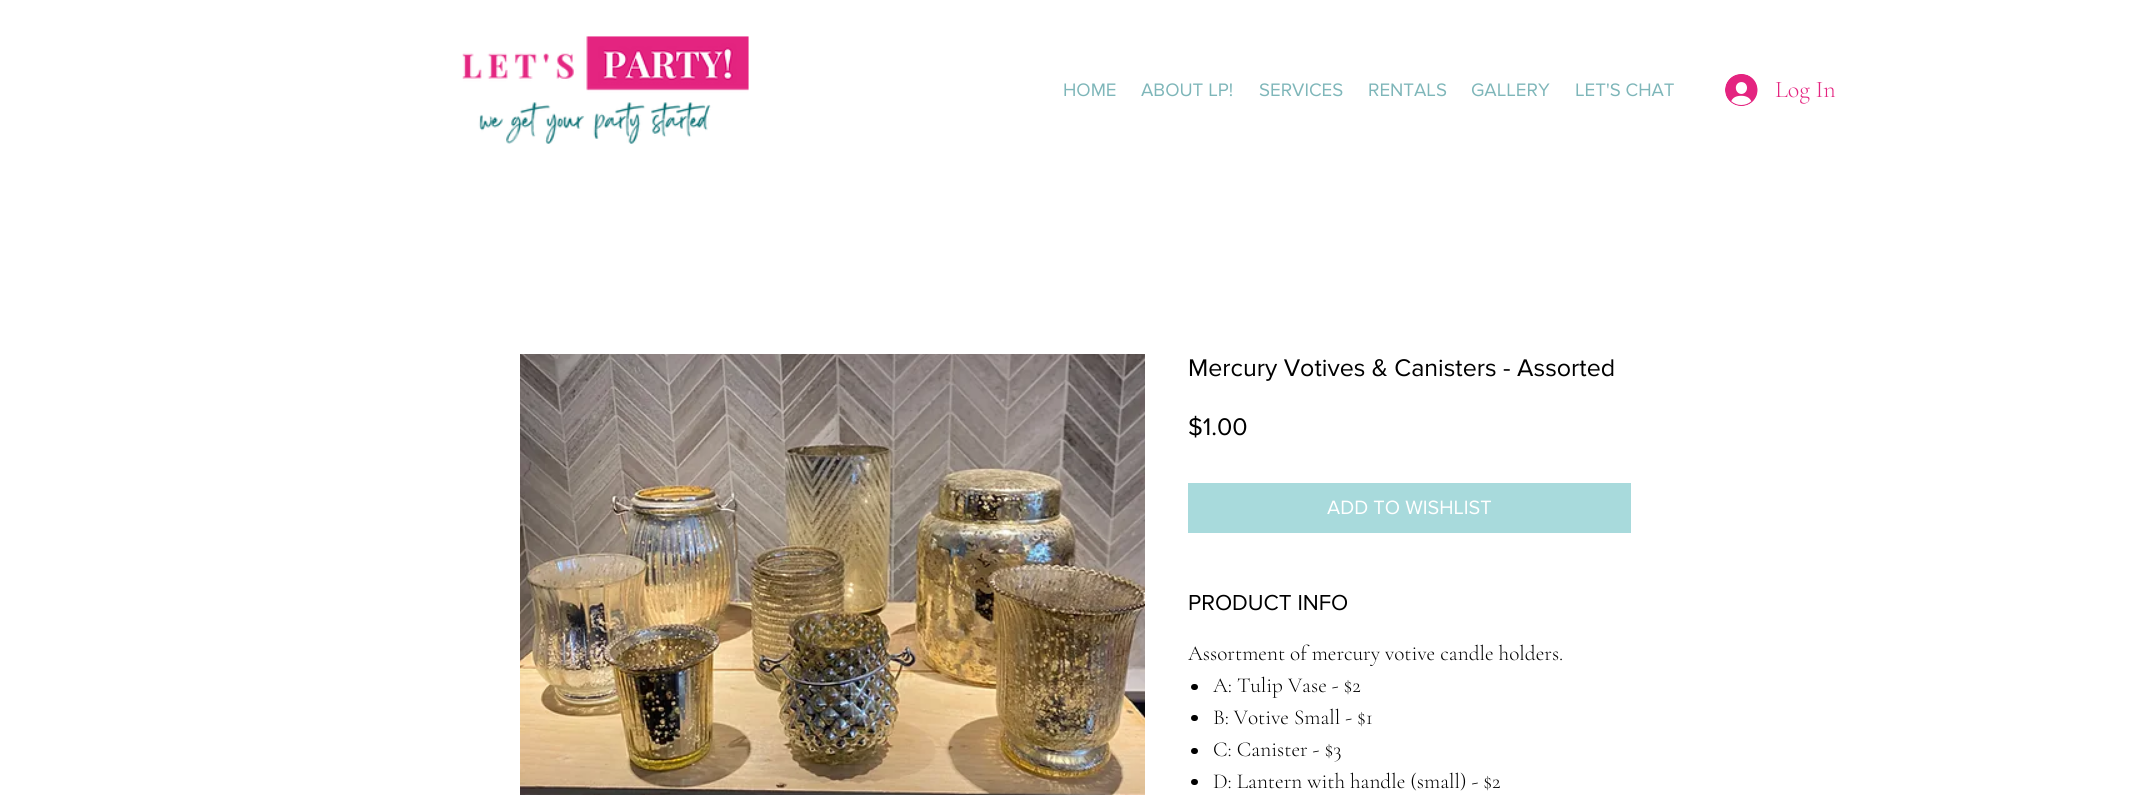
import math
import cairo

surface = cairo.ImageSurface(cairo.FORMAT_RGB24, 2149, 795)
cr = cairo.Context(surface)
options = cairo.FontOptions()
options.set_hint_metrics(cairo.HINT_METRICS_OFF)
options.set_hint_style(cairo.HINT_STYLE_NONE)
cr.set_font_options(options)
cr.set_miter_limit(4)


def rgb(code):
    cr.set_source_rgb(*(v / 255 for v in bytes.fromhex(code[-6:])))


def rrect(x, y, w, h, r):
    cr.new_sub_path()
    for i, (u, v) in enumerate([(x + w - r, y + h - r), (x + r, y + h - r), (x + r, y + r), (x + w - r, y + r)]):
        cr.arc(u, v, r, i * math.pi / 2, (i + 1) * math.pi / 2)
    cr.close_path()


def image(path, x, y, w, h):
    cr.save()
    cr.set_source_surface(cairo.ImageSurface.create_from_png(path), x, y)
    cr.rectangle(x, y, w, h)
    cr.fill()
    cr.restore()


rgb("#ffffff")
cr.paint()
image("img/1.png", 462, 36, 287, 108)
image("img/2.png", 1725, 74, 33, 32)
image("img/3.png", 520, 354, 625, 441)
rgb("#a8dadc")
cr.rectangle(1188, 483, 443, 50)
cr.fill()
rgb("#000000")
rrect(1191, 684, 7, 6, 3)
cr.fill()
rrect(1191, 715, 7, 6, 3)
cr.fill()
rrect(1191, 748, 7, 6, 3)
cr.fill()
rrect(1191, 779, 7, 6, 3)
cr.fill()
cr.select_font_face("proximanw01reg")
cr.set_font_size(18.75)
rgb("#7eb6b9")
for x, y, s in [
    (1063, 96, "HOME"),
    (1141, 96, "ABOUT LP!"),
    (1259, 96, "SERVICES"),
    (1368, 96, "RENTALS"),
    (1471, 96, "GALLERY"),
    (1575, 96, "LET'S CHAT"),
]:
    cr.move_to(x, y)
    cr.show_text(s)
cr.select_font_face("Cormorant Garamond Light")
cr.set_font_size(24)
rgb("#e42480")
cr.move_to(1775, 97)
cr.show_text("Log In")
cr.select_font_face("proximanw01reg")
cr.set_font_size(25)
rgb("#000000")
cr.move_to(1188, 376)
cr.show_text("Mercury Votives & Canisters - Assorted")
cr.move_to(1188, 435)
cr.show_text("$1.00")
cr.set_font_size(20)
rgb("#ffffff")
cr.move_to(1327, 514)
cr.show_text("ADD TO WISHLIST")
cr.set_font_size(22.5)
rgb("#000000")
cr.move_to(1188, 610)
cr.show_text("PRODUCT INFO")
cr.select_font_face("Cormorant Garamond Light")
cr.set_font_size(21.25)
for x, y, s in [
    (1188, 660, "Assortment of mercury votive candle holders."),
    (1213, 692, "A: Tulip Vase - $2"),
    (1213, 724, "B: Votive Small - $1"),
    (1213, 756, "C: Canister - $3"),
    (1213, 788, "D: Lantern with handle (small) - $2"),
]:
    cr.move_to(x, y)
    cr.show_text(s)
surface.write_to_png("page.png")
